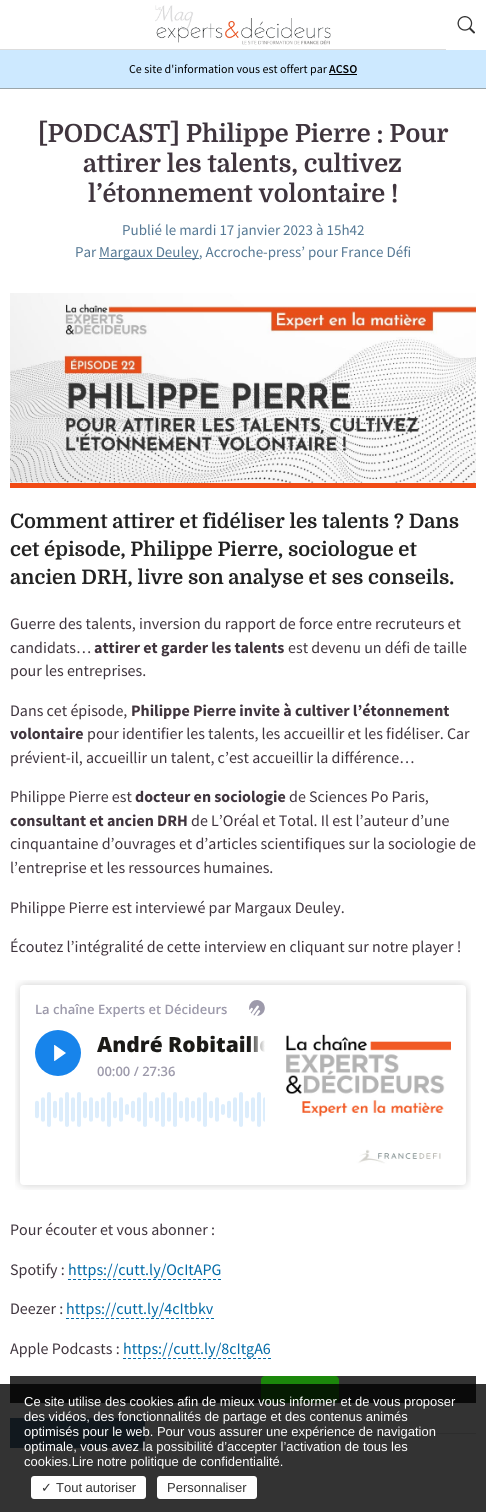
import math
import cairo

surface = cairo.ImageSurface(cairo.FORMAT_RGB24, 486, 1512)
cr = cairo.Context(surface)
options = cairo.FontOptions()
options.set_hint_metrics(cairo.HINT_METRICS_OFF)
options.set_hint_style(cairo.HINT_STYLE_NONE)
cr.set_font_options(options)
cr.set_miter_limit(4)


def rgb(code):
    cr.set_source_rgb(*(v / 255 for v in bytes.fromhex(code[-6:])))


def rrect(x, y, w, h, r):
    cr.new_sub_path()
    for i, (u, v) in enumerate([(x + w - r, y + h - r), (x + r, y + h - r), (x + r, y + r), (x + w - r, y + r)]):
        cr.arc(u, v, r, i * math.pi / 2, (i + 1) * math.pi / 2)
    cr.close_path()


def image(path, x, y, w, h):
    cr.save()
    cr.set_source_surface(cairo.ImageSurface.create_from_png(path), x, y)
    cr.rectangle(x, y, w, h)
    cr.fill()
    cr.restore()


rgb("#ffffff")
cr.paint()
rgb("#dddddd")
cr.rectangle(0, 49, 446, 1)
cr.fill()
image("img/1.png", 155, 5, 176, 40)
rgb("#333333")
cr.rectangle(457, 16, 18, 18)
cr.fill()
image("img/2.png", 446, 0, 40, 50)
for x, y, w, h, color in [
    (0, 50, 486, 38, "#cde9ff"),
    (0, 88, 486, 1, "#9ba6ab"),
    (329, 74, 28, 1, "#000000"),
    (99, 258, 100, 1, "#557894"),
    (10, 483, 466, 5, "#f14b15"),
]:
    rgb(color)
    cr.rectangle(x, y, w, h)
    cr.fill()
image("img/3.png", 10, 293, 466, 190)
image("img/4.png", 15, 980, 456, 210)
cr.new_path()
cr.move_to(68, 1279.5)
cr.line_to(221, 1279.5)
rgb("#006aa7")
cr.set_line_width(1)
cr.set_dash([3, 2])
cr.stroke()
cr.new_path()
cr.move_to(66, 1318.5)
cr.line_to(214, 1318.5)
cr.stroke()
cr.new_path()
cr.move_to(123, 1358.5)
cr.line_to(271, 1358.5)
cr.stroke()
rgb("#333333")
cr.rectangle(10, 1376, 466, 27)
cr.fill()
rgb("#1b870b")
rrect(261, 1376, 78, 27, 4)
cr.fill()
rgb("#557894")
cr.rectangle(10, 1418, 135, 30)
cr.fill()
rgb("#e3e3e3")
cr.rectangle(145, 1433, 331, 1)
cr.fill()
cr.set_source_rgba(0, 0, 0, 0.8)
cr.rectangle(0, 1384, 486, 128)
cr.fill()
rgb("#ffffff")
rrect(31, 1476, 115, 23, 3)
cr.fill()
rrect(157, 1476, 100, 23, 3)
cr.fill()
cr.select_font_face("Source Sans Pro")
cr.set_font_size(12)
rgb("#000000")
cr.move_to(129, 73)
cr.show_text("Ce site d'information vous est offert par")
cr.select_font_face("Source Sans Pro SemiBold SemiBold")
cr.move_to(329, 73)
cr.show_text("ACSO")
cr.select_font_face("Domine", cairo.FONT_SLANT_NORMAL, cairo.FONT_WEIGHT_BOLD)
cr.set_font_size(25)
rgb("#40353e")
for x, y, s in [
    (38, 142, "[PODCAST] Philippe Pierre : Pour"),
    (83, 172, "attirer les talents, cultivez"),
    (88, 202, "l’étonnement volontaire !"),
]:
    cr.move_to(x, y)
    cr.show_text(s)
cr.select_font_face("Source Sans Pro")
cr.set_font_size(15)
rgb("#557894")
for x, y, s in [
    (122, 235, "Publié le mardi 17 janvier 2023 à 15h42"),
    (75, 257, "Par"),
    (99, 257, "Margaux Deuley, Accroche-press’ pour France Défi"),
]:
    cr.move_to(x, y)
    cr.show_text(s)
cr.select_font_face("Domine", cairo.FONT_SLANT_NORMAL, cairo.FONT_WEIGHT_BOLD)
cr.set_font_size(20)
rgb("#222222")
for x, y, s in [
    (10, 528, "Comment attirer et fidéliser les talents ? Dans"),
    (10, 556, "cet épisode, Philippe Pierre, sociologue et"),
    (10, 584, "ancien DRH, livre son analyse et ses conseils."),
]:
    cr.move_to(x, y)
    cr.show_text(s)
cr.select_font_face("Source Sans Pro")
cr.set_font_size(16)
rgb("#40353e")
cr.move_to(10, 629)
cr.show_text("Guerre des talents, inversion du rapport de force entre recruteurs et")
cr.move_to(10, 653)
cr.show_text("candidats…")
cr.select_font_face("Source Sans Pro", cairo.FONT_SLANT_NORMAL, cairo.FONT_WEIGHT_BOLD)
cr.move_to(94, 653)
cr.show_text("attirer et garder les talents")
cr.select_font_face("Source Sans Pro")
for x, y, s in [
    (288, 653, "est devenu un défi de taille"),
    (10, 676, "pour les entreprises."),
    (10, 716, "Dans cet épisode,"),
]:
    cr.move_to(x, y)
    cr.show_text(s)
cr.select_font_face("Source Sans Pro", cairo.FONT_SLANT_NORMAL, cairo.FONT_WEIGHT_BOLD)
cr.move_to(131, 716)
cr.show_text("Philippe Pierre invite à cultiver l’étonnement")
cr.move_to(10, 739)
cr.show_text("volontaire")
cr.select_font_face("Source Sans Pro")
for x, y, s in [
    (87, 739, "pour identifier les talents, les accueillir et les fidéliser. Car"),
    (10, 763, "prévient-il, accueillir un talent, c’est accueillir la différence…"),
    (10, 802, "Philippe Pierre est"),
]:
    cr.move_to(x, y)
    cr.show_text(s)
cr.select_font_face("Source Sans Pro", cairo.FONT_SLANT_NORMAL, cairo.FONT_WEIGHT_BOLD)
cr.move_to(135, 802)
cr.show_text("docteur en sociologie")
cr.select_font_face("Source Sans Pro")
cr.move_to(289, 802)
cr.show_text("de Sciences Po Paris,")
cr.select_font_face("Source Sans Pro", cairo.FONT_SLANT_NORMAL, cairo.FONT_WEIGHT_BOLD)
cr.move_to(10, 826)
cr.show_text("consultant et ancien DRH")
cr.select_font_face("Source Sans Pro")
for x, y, s in [
    (191, 826, "de L’Oréal et Total. Il est l’auteur d’une"),
    (10, 849, "cinquantaine d’ouvrages et d’articles scientifiques sur la sociologie de"),
    (10, 873, "l’entreprise et les ressources humaines."),
    (10, 913, "Philippe Pierre est interviewé par Margaux Deuley."),
    (10, 952, "Écoutez l’intégralité de cette interview en cliquant sur notre player !"),
    (10, 1235, "Pour écouter et vous abonner :"),
    (10, 1275, "Spotify :"),
]:
    cr.move_to(x, y)
    cr.show_text(s)
rgb("#006aa7")
cr.move_to(68, 1275)
cr.show_text("https://cutt.ly/OcItAPG")
rgb("#40353e")
cr.move_to(10, 1314)
cr.show_text("Deezer :")
rgb("#006aa7")
cr.move_to(66, 1314)
cr.show_text("https://cutt.ly/4cItbkv")
rgb("#40353e")
cr.move_to(10, 1354)
cr.show_text("Apple Podcasts :")
rgb("#006aa7")
cr.move_to(123, 1354)
cr.show_text("https://cutt.ly/8cItgA6")
cr.select_font_face("Liberation Sans")
cr.set_font_size(13)
rgb("#ffffff")
for x, y, s in [
    (24, 1406, "Ce site utilise des cookies afin de mieux vous informer et de vous proposer"),
    (24, 1421, "des vidéos, des fonctionnalités de partage et des contenus animés"),
    (24, 1436, "optimisés pour le web. Pour vous assurer une expérience de navigation"),
    (24, 1451, "optimale, vous avez la possibilité d’accepter l’activation de tous les"),
    (24, 1466, "cookies.Lire notre politique de confidentialité."),
]:
    cr.move_to(x, y)
    cr.show_text(s)
cr.select_font_face("DejaVu Sans")
rgb("#333333")
cr.move_to(41, 1492)
cr.show_text("✓")
cr.select_font_face("Liberation Sans")
cr.move_to(56, 1492)
cr.show_text("Tout autoriser")
cr.move_to(167, 1492)
cr.show_text("Personnaliser")
surface.write_to_png("page.png")
